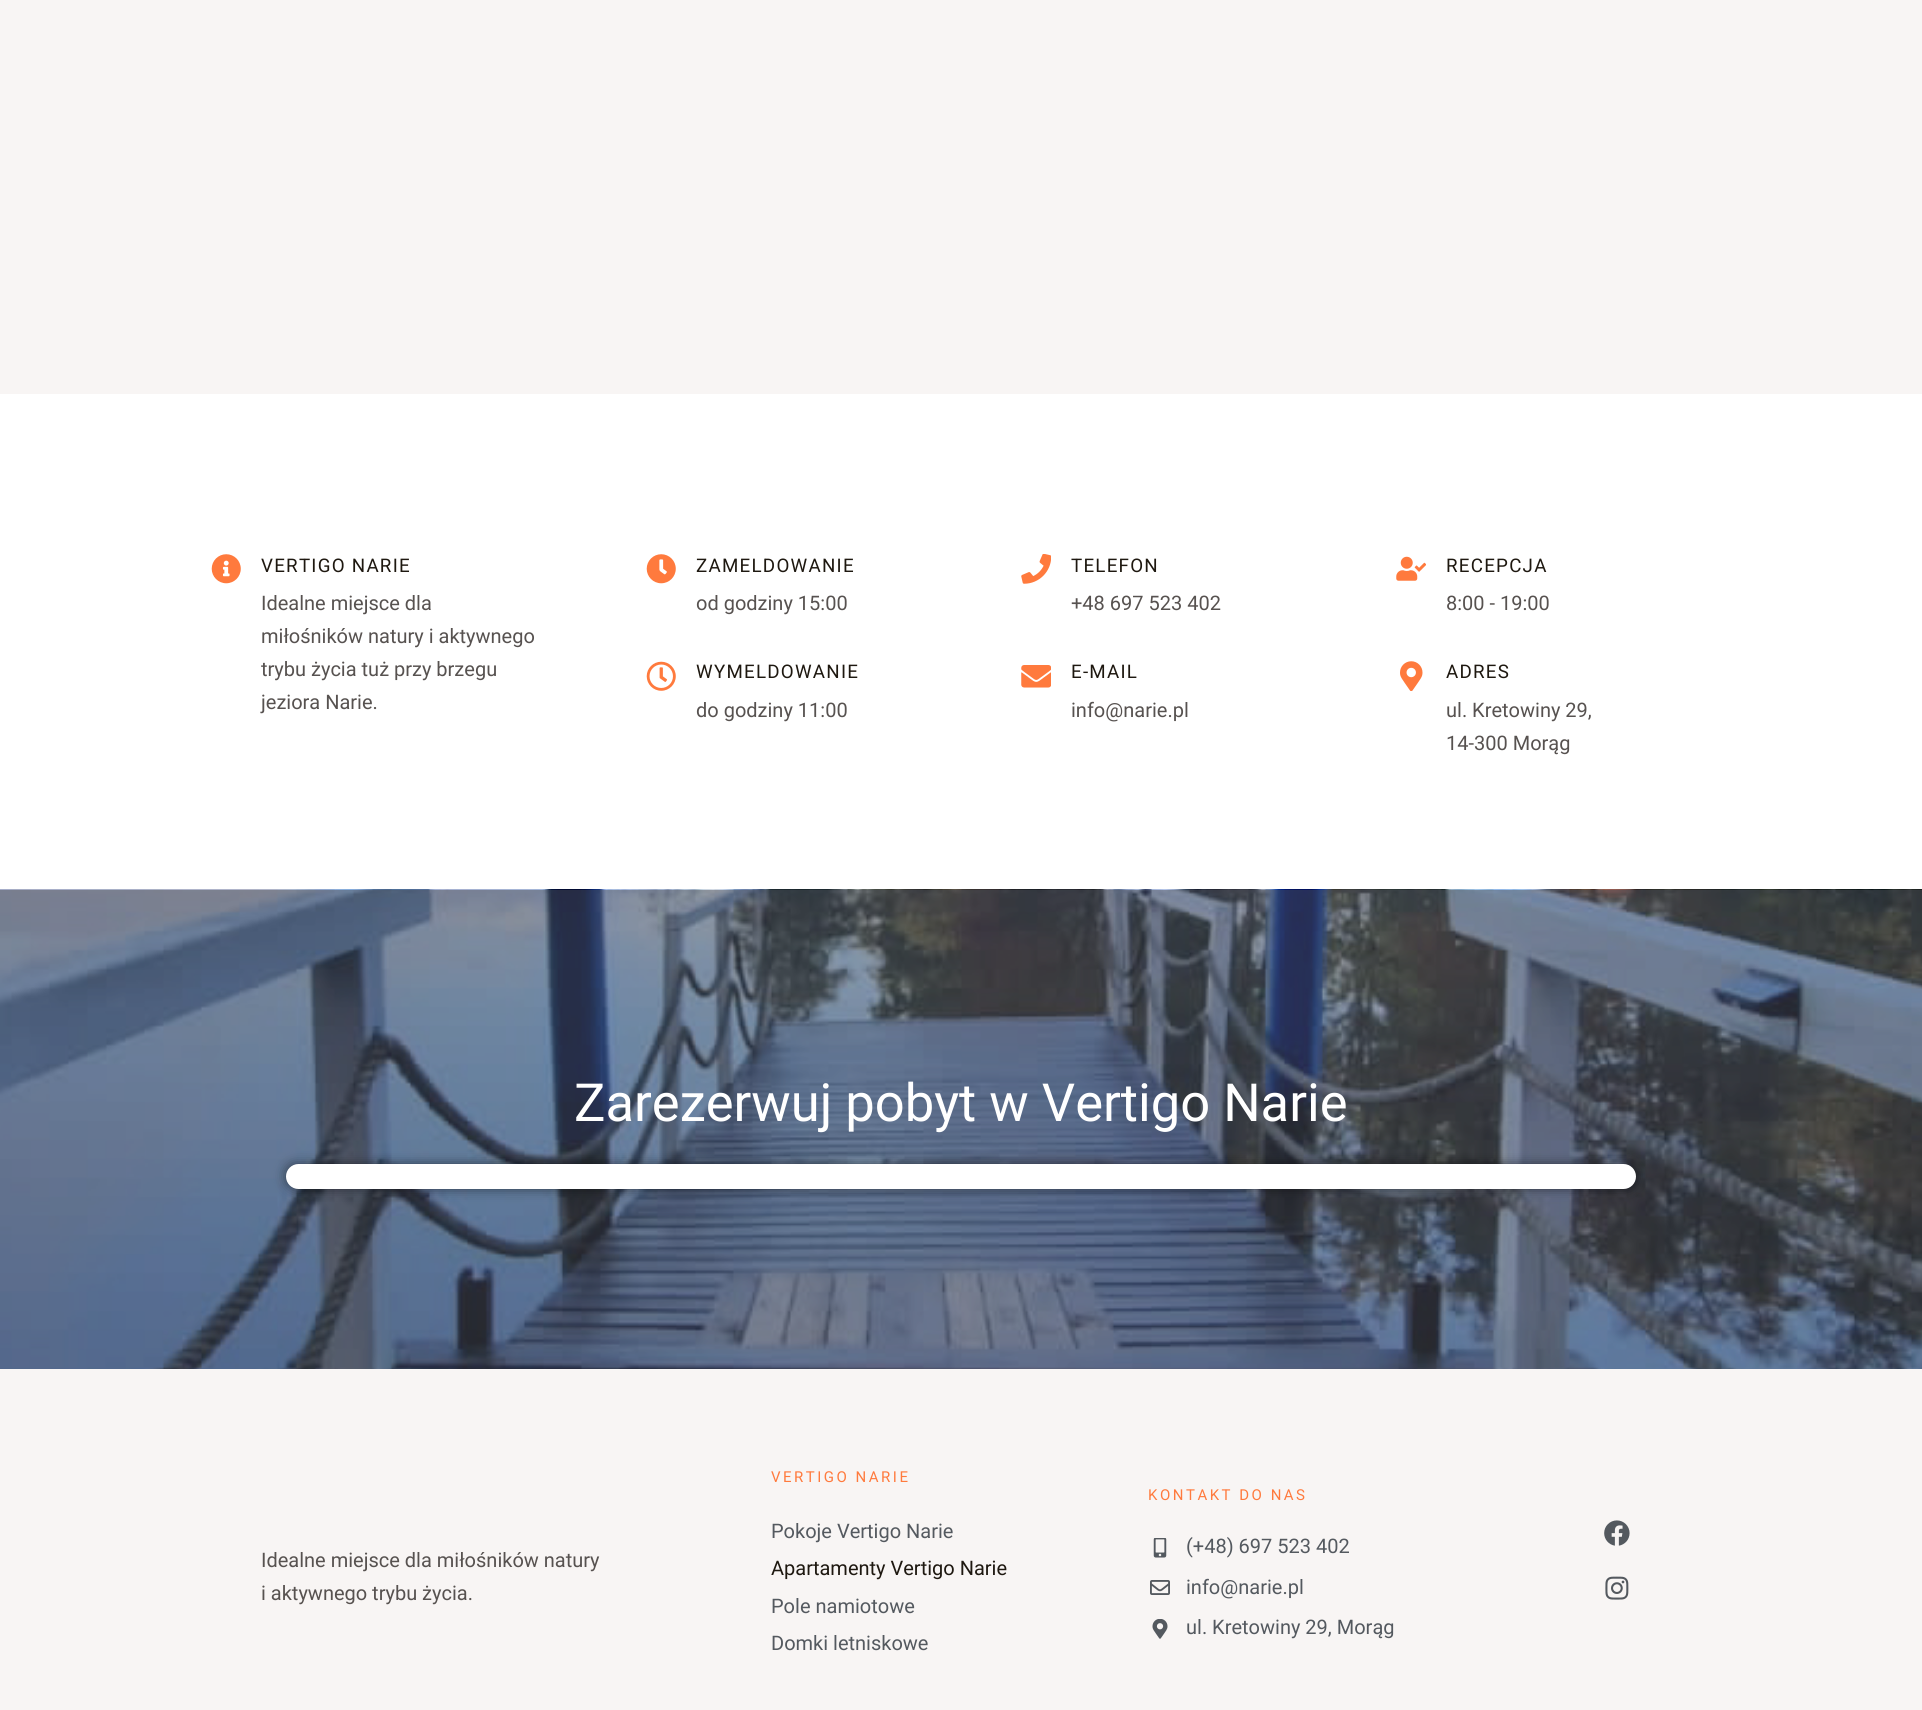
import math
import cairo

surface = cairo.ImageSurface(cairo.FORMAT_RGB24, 1922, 1710)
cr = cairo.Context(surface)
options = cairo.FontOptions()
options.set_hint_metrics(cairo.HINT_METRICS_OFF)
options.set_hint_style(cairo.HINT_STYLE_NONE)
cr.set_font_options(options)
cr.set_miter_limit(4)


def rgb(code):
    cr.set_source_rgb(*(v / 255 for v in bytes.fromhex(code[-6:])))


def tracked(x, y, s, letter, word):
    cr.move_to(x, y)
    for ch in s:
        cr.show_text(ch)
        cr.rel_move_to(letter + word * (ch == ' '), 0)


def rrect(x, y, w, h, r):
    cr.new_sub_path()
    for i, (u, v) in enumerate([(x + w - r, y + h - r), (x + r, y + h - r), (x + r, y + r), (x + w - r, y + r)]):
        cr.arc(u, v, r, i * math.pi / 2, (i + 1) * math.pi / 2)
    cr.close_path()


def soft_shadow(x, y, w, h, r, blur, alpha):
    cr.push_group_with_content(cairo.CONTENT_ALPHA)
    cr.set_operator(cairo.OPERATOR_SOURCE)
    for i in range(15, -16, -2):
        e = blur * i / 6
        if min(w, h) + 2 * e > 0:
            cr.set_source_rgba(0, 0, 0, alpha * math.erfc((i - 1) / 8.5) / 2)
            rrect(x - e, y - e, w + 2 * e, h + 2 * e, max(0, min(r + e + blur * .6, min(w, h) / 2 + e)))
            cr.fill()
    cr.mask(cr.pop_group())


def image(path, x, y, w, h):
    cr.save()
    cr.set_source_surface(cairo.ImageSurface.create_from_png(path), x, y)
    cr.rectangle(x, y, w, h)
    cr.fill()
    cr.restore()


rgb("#f8f5f4")
cr.paint()
rgb("#ffffff")
cr.rectangle(0, 394, 1922, 495)
cr.fill()
image("img/1.png", 211, 554, 30, 30)
image("img/2.png", 646, 554, 30, 30)
image("img/3.png", 646, 661, 30, 30)
image("img/4.png", 1021, 554, 30, 30)
image("img/5.png", 1021, 665, 30, 23)
image("img/6.png", 1396, 556, 30, 25)
image("img/7.png", 1400, 661, 23, 30)
image("img/8.png", 0, 889, 1922, 480)
rgb("#000000")
soft_shadow(286, 1164, 1350, 25, 12.5, 6, 0.5)
rgb("#ffffff")
rrect(286, 1164, 1350, 25, 12.5)
cr.fill()
image("img/9.png", 1153, 1538, 14, 20)
image("img/10.png", 1150, 1580, 20, 15)
image("img/11.png", 1152, 1619, 16, 20)
image("img/12.png", 1604, 1520, 26, 26)
image("img/13.png", 1605, 1576, 24, 24)
cr.select_font_face("Roboto")
cr.set_font_size(18.75)
rgb("#1e1810")
tracked(261, 572, "VERTIGO NARIE", 1.25, 0)
cr.set_font_size(20)
rgb("#575250")
for x, y, s in [
    (261, 610, "Idealne miejsce dla"),
    (261, 643, "miłośników natury i aktywnego"),
    (261, 676, "trybu życia tuż przy brzegu"),
    (261, 709, "jeziora Narie."),
]:
    cr.move_to(x, y)
    cr.show_text(s)
cr.set_font_size(18.75)
rgb("#1e1810")
tracked(696, 572, "ZAMELDOWANIE", 1.25, 0)
cr.set_font_size(20)
rgb("#575250")
cr.move_to(696, 610)
cr.show_text("od godziny 15:00")
cr.set_font_size(18.75)
rgb("#1e1810")
tracked(696, 678, "WYMELDOWANIE", 1.25, 0)
cr.set_font_size(20)
rgb("#575250")
cr.move_to(696, 717)
cr.show_text("do godziny 11:00")
cr.set_font_size(18.75)
rgb("#1e1810")
tracked(1071, 572, "TELEFON", 1.25, 0)
cr.set_font_size(20)
rgb("#575250")
cr.move_to(1071, 610)
cr.show_text("+48 697 523 402")
cr.set_font_size(18.75)
rgb("#1e1810")
tracked(1071, 678, "E-MAIL", 1.25, 0)
cr.set_font_size(20)
rgb("#575250")
cr.move_to(1071, 717)
cr.show_text("info@narie.pl")
cr.set_font_size(18.75)
rgb("#1e1810")
tracked(1446, 572, "RECEPCJA", 1.25, 0)
cr.set_font_size(20)
rgb("#575250")
cr.move_to(1446, 610)
cr.show_text("8:00 - 19:00")
cr.set_font_size(18.75)
rgb("#1e1810")
tracked(1446, 678, "ADRES", 1.25, 0)
cr.set_font_size(20)
rgb("#575250")
cr.move_to(1446, 717)
cr.show_text("ul. Kretowiny 29,")
cr.move_to(1446, 750)
cr.show_text("14-300 Morąg")
cr.set_font_size(52.5)
rgb("#ffffff")
cr.move_to(574, 1121)
cr.show_text("Zarezerwuj pobyt w Vertigo Narie")
cr.set_font_size(20)
rgb("#575250")
cr.move_to(261, 1567)
cr.show_text("Idealne miejsce dla miłośników natury")
cr.move_to(261, 1600)
cr.show_text("i aktywnego trybu życia.")
cr.set_font_size(15)
rgb("#ff7a3d")
tracked(771, 1482, "VERTIGO NARIE", 2.5, 0)
cr.set_font_size(20)
rgb("#54595f")
cr.move_to(771, 1538)
cr.show_text("Pokoje Vertigo Narie")
rgb("#1e1810")
cr.move_to(771, 1575)
cr.show_text("Apartamenty Vertigo Narie")
rgb("#54595f")
cr.move_to(771, 1613)
cr.show_text("Pole namiotowe")
cr.move_to(771, 1650)
cr.show_text("Domki letniskowe")
cr.set_font_size(15)
rgb("#ff7a3d")
tracked(1148, 1500, "KONTAKT DO NAS", 2.5, 0)
cr.set_font_size(20)
rgb("#54595f")
for x, y, s in [
    (1186, 1553, "(+48) 697 523 402"),
    (1186, 1594, "info@narie.pl"),
    (1186, 1634, "ul. Kretowiny 29, Morąg"),
]:
    cr.move_to(x, y)
    cr.show_text(s)
surface.write_to_png("page.png")
